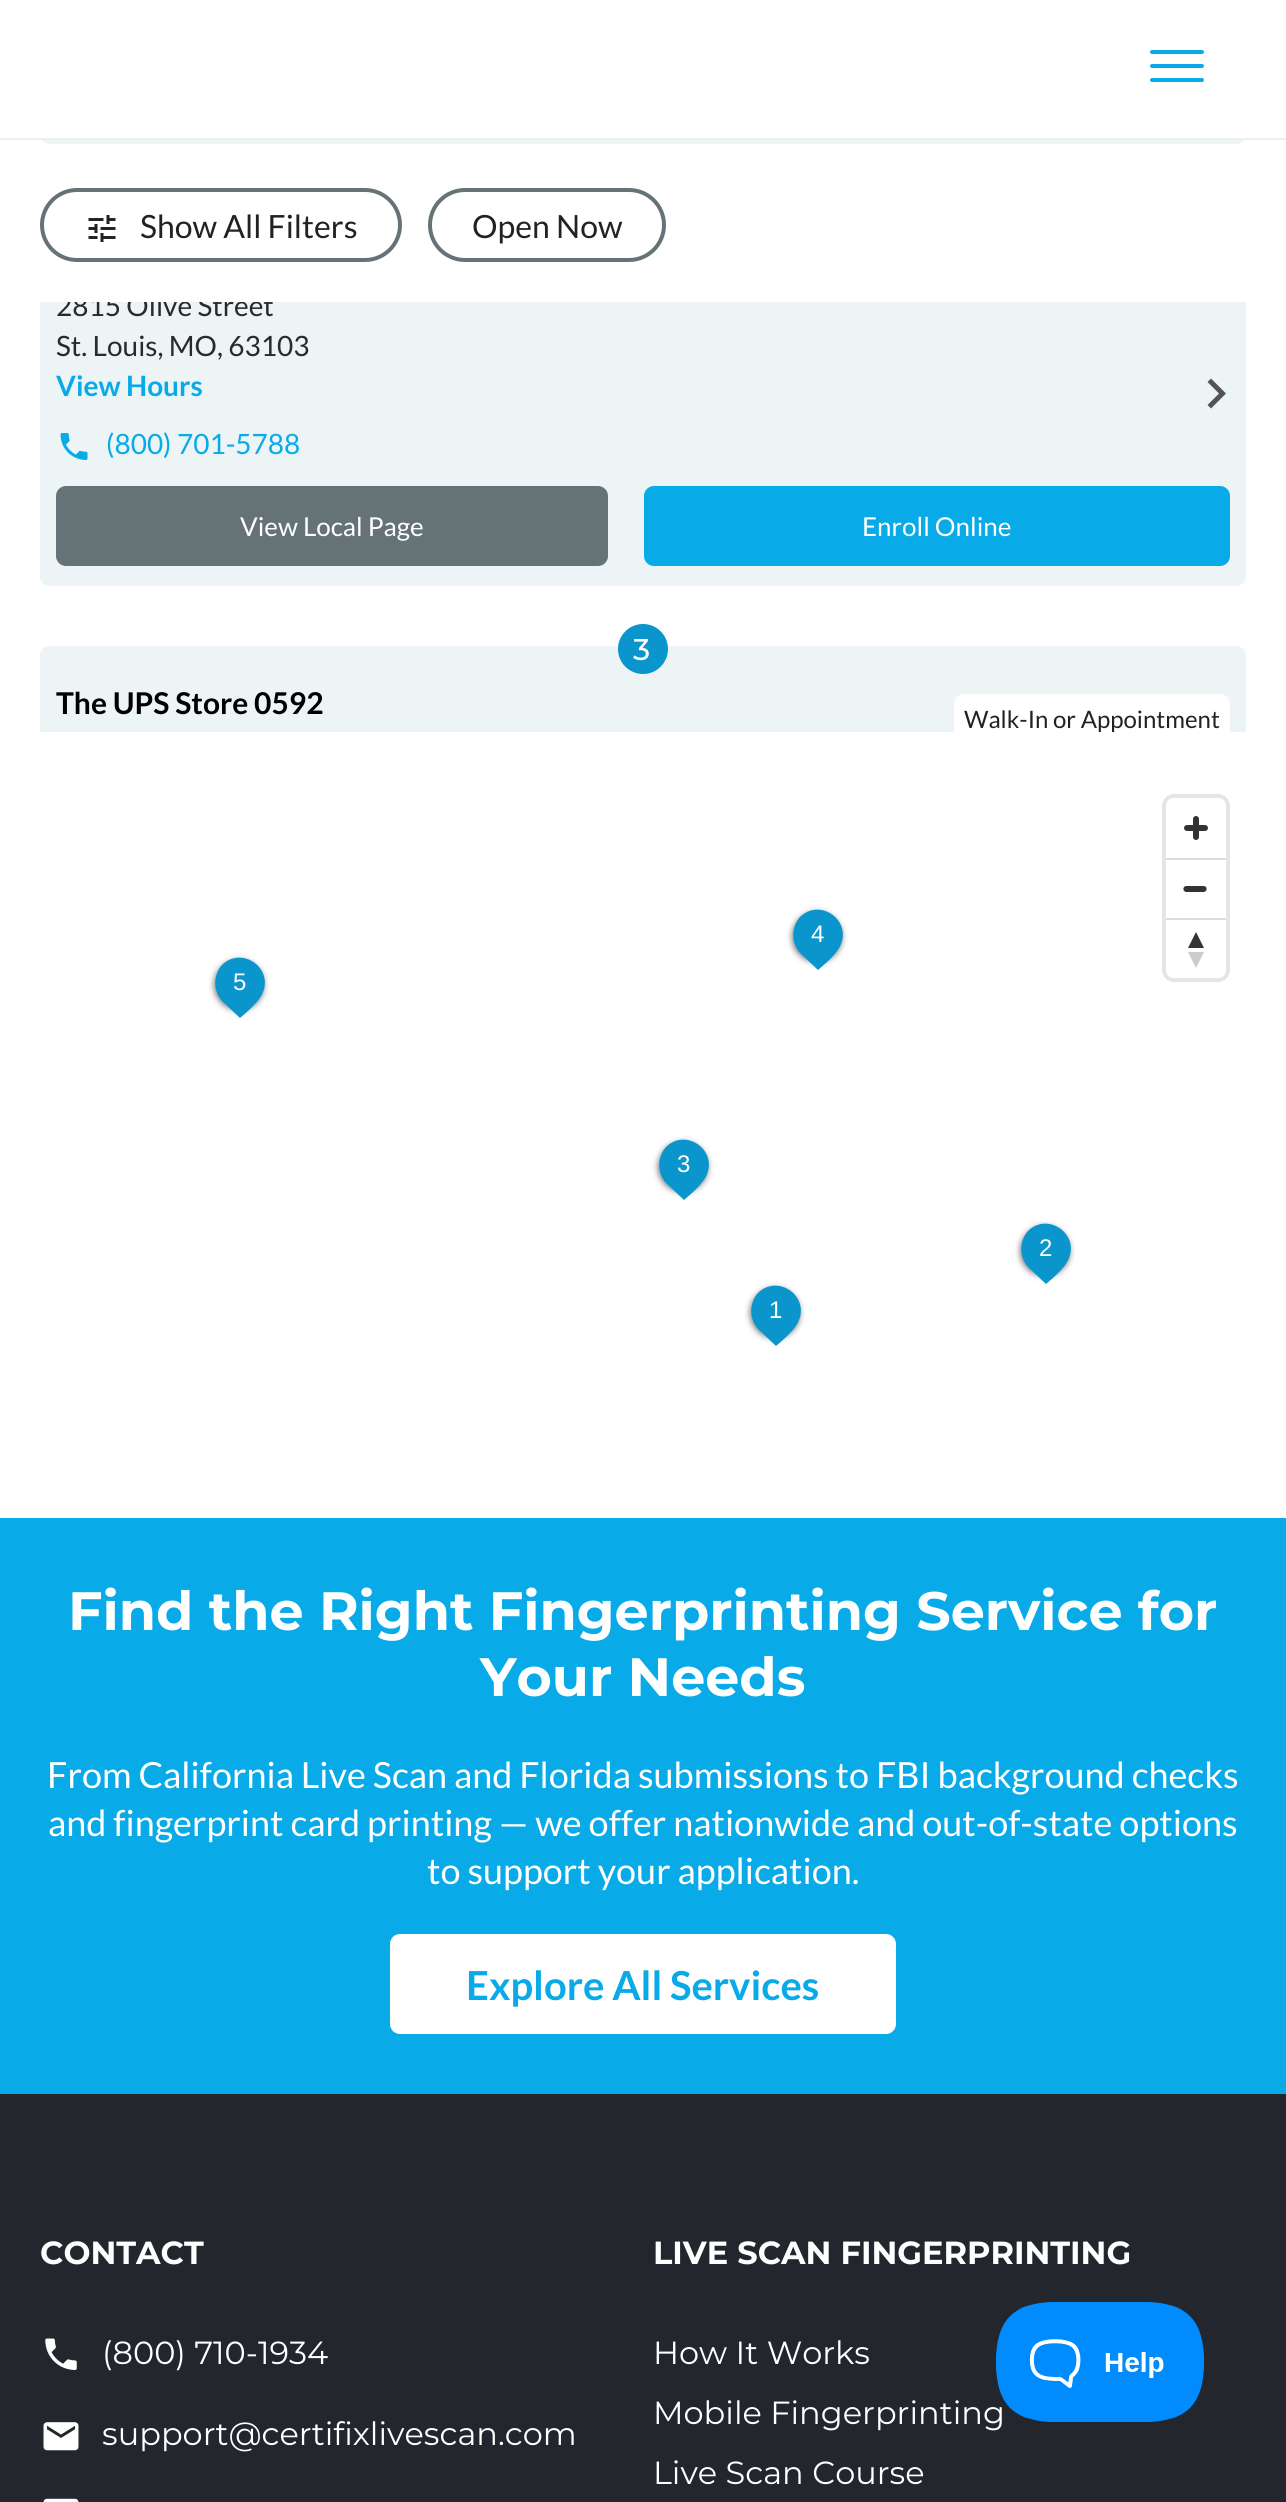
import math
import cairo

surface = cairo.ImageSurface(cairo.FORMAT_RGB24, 1286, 2502)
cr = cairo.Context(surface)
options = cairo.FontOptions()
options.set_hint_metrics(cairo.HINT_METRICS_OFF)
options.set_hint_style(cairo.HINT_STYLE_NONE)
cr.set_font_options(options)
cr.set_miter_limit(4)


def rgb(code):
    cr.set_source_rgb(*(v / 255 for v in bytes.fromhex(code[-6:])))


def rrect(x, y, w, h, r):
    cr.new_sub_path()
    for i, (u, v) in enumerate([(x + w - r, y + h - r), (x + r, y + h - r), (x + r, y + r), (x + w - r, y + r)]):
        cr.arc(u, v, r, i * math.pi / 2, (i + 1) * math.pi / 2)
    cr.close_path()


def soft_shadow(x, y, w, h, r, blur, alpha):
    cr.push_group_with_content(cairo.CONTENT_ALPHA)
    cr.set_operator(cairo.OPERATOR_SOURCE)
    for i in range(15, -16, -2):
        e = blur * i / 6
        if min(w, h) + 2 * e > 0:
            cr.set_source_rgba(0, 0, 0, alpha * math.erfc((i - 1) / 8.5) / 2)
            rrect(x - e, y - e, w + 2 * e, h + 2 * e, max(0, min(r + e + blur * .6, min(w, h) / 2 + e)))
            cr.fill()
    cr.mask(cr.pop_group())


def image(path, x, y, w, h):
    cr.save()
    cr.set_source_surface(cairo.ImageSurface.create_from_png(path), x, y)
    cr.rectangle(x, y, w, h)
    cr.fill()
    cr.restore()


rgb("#ffffff")
cr.paint()
rgb("#ecf4f6")
rrect(40, -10, 1206, 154, 10)
cr.fill()
rgb("#ffffff")
cr.rectangle(40, 0, 1206, 138)
cr.fill()
rgb("#08aae8")
rrect(1150, 64, 54, 4, 2)
cr.fill()
rrect(1150, 50, 54, 4, 2)
cr.fill()
rrect(1150, 78, 54, 4, 2)
cr.fill()
rgb("#eeeeee")
cr.rectangle(0, 138, 1286, 2)
cr.fill()
rgb("#ecf4f6")
rrect(40, 204, 1206, 382, 10)
cr.fill()
rgb("#545454")
cr.new_path()
cr.move_to(1207.5, 405)
cr.line_to(1219, 393.5)
cr.line_to(1207.5, 382)
cr.line_to(1211, 378.5)
cr.line_to(1226, 393.5)
cr.line_to(1211, 408.5)
cr.close_path()
cr.fill()
image("img/2.png", 60, 433, 28, 27)
rgb("#657276")
rrect(58, 488, 548, 76, 8)
cr.fill_preserve()
cr.set_line_width(4)
cr.stroke()
rgb("#08aae8")
rrect(646, 488, 582, 76, 8)
cr.fill_preserve()
cr.stroke()
rgb("#ecf4f6")
cr.new_path()
cr.move_to(50, 646)
cr.line_to(1236, 646)
cr.curve_to(1241.5, 646, 1246, 650.5, 1246, 656)
cr.line_to(1246, 732)
cr.line_to(40, 732)
cr.line_to(40, 656)
cr.curve_to(40, 650.5, 44.5, 646, 50, 646)
cr.close_path()
cr.fill()
rgb("#0a96cc")
cr.arc(643, 649, 25, 0, 2 * math.pi)
cr.fill()
rgb("#ffffff")
cr.new_path()
cr.move_to(964, 694)
cr.line_to(1220, 694)
cr.curve_to(1225.5, 694, 1230, 698.5, 1230, 704)
cr.line_to(1230, 732)
cr.line_to(954, 732)
cr.line_to(954, 704)
cr.curve_to(954, 698.5, 958.5, 694, 964, 694)
cr.close_path()
cr.fill()
rrect(1164, 796, 64, 184, 10)
rgb("#e6e6e6")
cr.stroke()
rgb("#ffffff")
rrect(1166, 798, 60, 180, 8)
cr.fill()
image("img/3.png", 1184, 816, 24, 24)
image("img/4.png", 1183, 886, 24, 6)
rgb("#dddddd")
cr.rectangle(1166, 858, 60, 2)
cr.fill()
cr.rectangle(1166, 918, 60, 2)
cr.fill()
rgb("#333333")
cr.new_path()
cr.move_to(1188, 948)
cr.line_to(1196, 932)
cr.line_to(1204, 948)
cr.close_path()
cr.fill()
rgb("#cccccc")
cr.new_path()
cr.move_to(1188, 952)
cr.line_to(1196, 968)
cr.line_to(1204, 952)
cr.close_path()
cr.fill()
rgb("#000000")
soft_shadow(792, 912, 50, 50, 25, 3, 0.5)
rgb("#0a96cc")
cr.new_path()
cr.move_to(800, 917)
cr.curve_to(819, 898, 851, 919, 841, 944)
cr.curve_to(838, 953, 825, 964, 818, 970)
cr.line_to(800, 953)
cr.curve_to(791, 943, 791, 927, 800, 917)
cr.close_path()
cr.fill()
rgb("#000000")
soft_shadow(214, 960, 50, 50, 25, 3, 0.5)
rgb("#0a96cc")
cr.new_path()
cr.move_to(222, 965)
cr.curve_to(241, 946, 273, 967, 263, 992)
cr.curve_to(260, 1001, 247, 1012, 240, 1018)
cr.line_to(222, 1001)
cr.curve_to(213, 991, 213, 975, 222, 965)
cr.close_path()
cr.fill()
rgb("#000000")
soft_shadow(658, 1142, 50, 50, 25, 3, 0.5)
rgb("#0a96cc")
cr.new_path()
cr.move_to(666, 1147)
cr.curve_to(685, 1128, 717, 1149, 707, 1174)
cr.curve_to(704, 1183, 691, 1194, 684, 1200)
cr.line_to(666, 1183)
cr.curve_to(657, 1173, 657, 1157, 666, 1147)
cr.close_path()
cr.fill()
rgb("#000000")
soft_shadow(1020, 1226, 50, 50, 25, 3, 0.5)
rgb("#0a96cc")
cr.new_path()
cr.move_to(1028, 1231)
cr.curve_to(1047, 1212, 1079, 1233, 1069, 1258)
cr.curve_to(1066, 1267, 1053, 1278, 1046, 1284)
cr.line_to(1028, 1267)
cr.curve_to(1019, 1257, 1019, 1241, 1028, 1231)
cr.close_path()
cr.fill()
rgb("#000000")
soft_shadow(750, 1288, 50, 50, 25, 3, 0.5)
rgb("#0a96cc")
cr.new_path()
cr.move_to(758, 1293)
cr.curve_to(777, 1274, 809, 1295, 799, 1320)
cr.curve_to(796, 1329, 783, 1340, 776, 1346)
cr.line_to(758, 1329)
cr.curve_to(749, 1319, 749, 1303, 758, 1293)
cr.close_path()
cr.fill()
rgb("#08aae8")
cr.rectangle(0, 1518, 1286, 576)
cr.fill()
rgb("#ffffff")
rrect(390, 1934, 506, 100, 10)
cr.fill()
rgb("#23262d")
cr.rectangle(0, 2094, 1286, 408)
cr.fill()
image("img/5.png", 45, 2338, 32, 32)
image("img/6.png", 43, 2422, 36, 29)
image("img/7.png", 43, 2498, 36, 4)
cr.select_font_face("Lato")
cr.set_font_size(28)
rgb("#2a2a2a")
cr.move_to(56, 316)
cr.show_text("2815 Olive Street")
rgb("#ffffff")
cr.rectangle(40, 204, 1206, 98)
cr.fill()
rrect(42, 190, 358, 70, 35)
rgb("#657276")
cr.stroke()
image("img/1.png", 88, 215, 28, 27)
rrect(430, 190, 234, 70, 35)
cr.stroke()
cr.set_font_size(32)
rgb("#222222")
cr.move_to(472, 238)
cr.show_text("Open Now")
cr.move_to(140, 238)
cr.show_text("Show All Filters")
cr.set_font_size(28)
rgb("#2a2a2a")
cr.move_to(56, 356)
cr.show_text("St. Louis, MO, 63103")
cr.select_font_face("Lato", cairo.FONT_SLANT_NORMAL, cairo.FONT_WEIGHT_BOLD)
rgb("#08aae8")
cr.move_to(56, 396)
cr.show_text("View Hours")
cr.select_font_face("Lato")
cr.move_to(106, 454)
cr.show_text("(800) 701-5788")
cr.set_font_size(26)
rgb("#ffffff")
cr.move_to(240, 536)
cr.show_text("View Local Page")
cr.move_to(862, 536)
cr.show_text("Enroll Online")
cr.select_font_face("Montserrat Medium")
cr.set_font_size(30)
cr.move_to(633, 660)
cr.show_text("3")
cr.select_font_face("Lato", cairo.FONT_SLANT_NORMAL, cairo.FONT_WEIGHT_BOLD)
rgb("#000000")
cr.move_to(56, 714)
cr.show_text("The UPS Store 0592")
cr.save()
cr.rectangle(40, 0, 1206, 732)
cr.clip()
cr.select_font_face("Lato")
cr.set_font_size(24)
rgb("#222222")
cr.move_to(964, 728)
cr.show_text("Walk-In or Appointment")
cr.restore()
cr.select_font_face("Liberation Sans")
cr.set_font_size(24)
rgb("#ffffff")
for x, y, s in [
    (811, 942, "4"),
    (233, 990, "5"),
    (677, 1172, "3"),
    (1039, 1256, "2"),
    (769, 1318, "1"),
]:
    cr.move_to(x, y)
    cr.show_text(s)
cr.select_font_face("Montserrat", cairo.FONT_SLANT_NORMAL, cairo.FONT_WEIGHT_BOLD)
cr.set_font_size(54)
cr.move_to(68, 1630)
cr.show_text("Find the Right Fingerprinting Service for")
cr.move_to(480, 1696)
cr.show_text("Your Needs")
cr.select_font_face("Lato")
cr.set_font_size(36)
for x, y, s in [
    (47, 1788, "From California Live Scan and Florida submissions to FBI background checks"),
    (48, 1836, "and fingerprint card printing — we offer nationwide and out-of-state options"),
    (427, 1884, "to support your application."),
]:
    cr.move_to(x, y)
    cr.show_text(s)
cr.select_font_face("Lato", cairo.FONT_SLANT_NORMAL, cairo.FONT_WEIGHT_BOLD)
cr.set_font_size(40)
rgb("#08aae8")
cr.move_to(466, 2000)
cr.show_text("Explore All Services")
cr.select_font_face("Montserrat", cairo.FONT_SLANT_NORMAL, cairo.FONT_WEIGHT_BOLD)
cr.set_font_size(32)
rgb("#ffffff")
cr.move_to(40, 2264)
cr.show_text("CONTACT")
cr.select_font_face("Montserrat")
cr.move_to(102, 2364)
cr.show_text("(800) 710-1934")
cr.move_to(102, 2445)
cr.show_text("support@certifixlivescan.com")
cr.select_font_face("Montserrat", cairo.FONT_SLANT_NORMAL, cairo.FONT_WEIGHT_BOLD)
cr.move_to(653, 2264)
cr.show_text("LIVE SCAN FINGERPRINTING")
cr.select_font_face("Montserrat")
for x, y, s in [
    (653, 2364, "How It Works"),
    (653, 2424, "Mobile Fingerprinting"),
    (653, 2484, "Live Scan Course"),
]:
    cr.move_to(x, y)
    cr.show_text(s)
image("img/8.png", 996, 2302, 208, 120)
surface.write_to_png("page.png")
